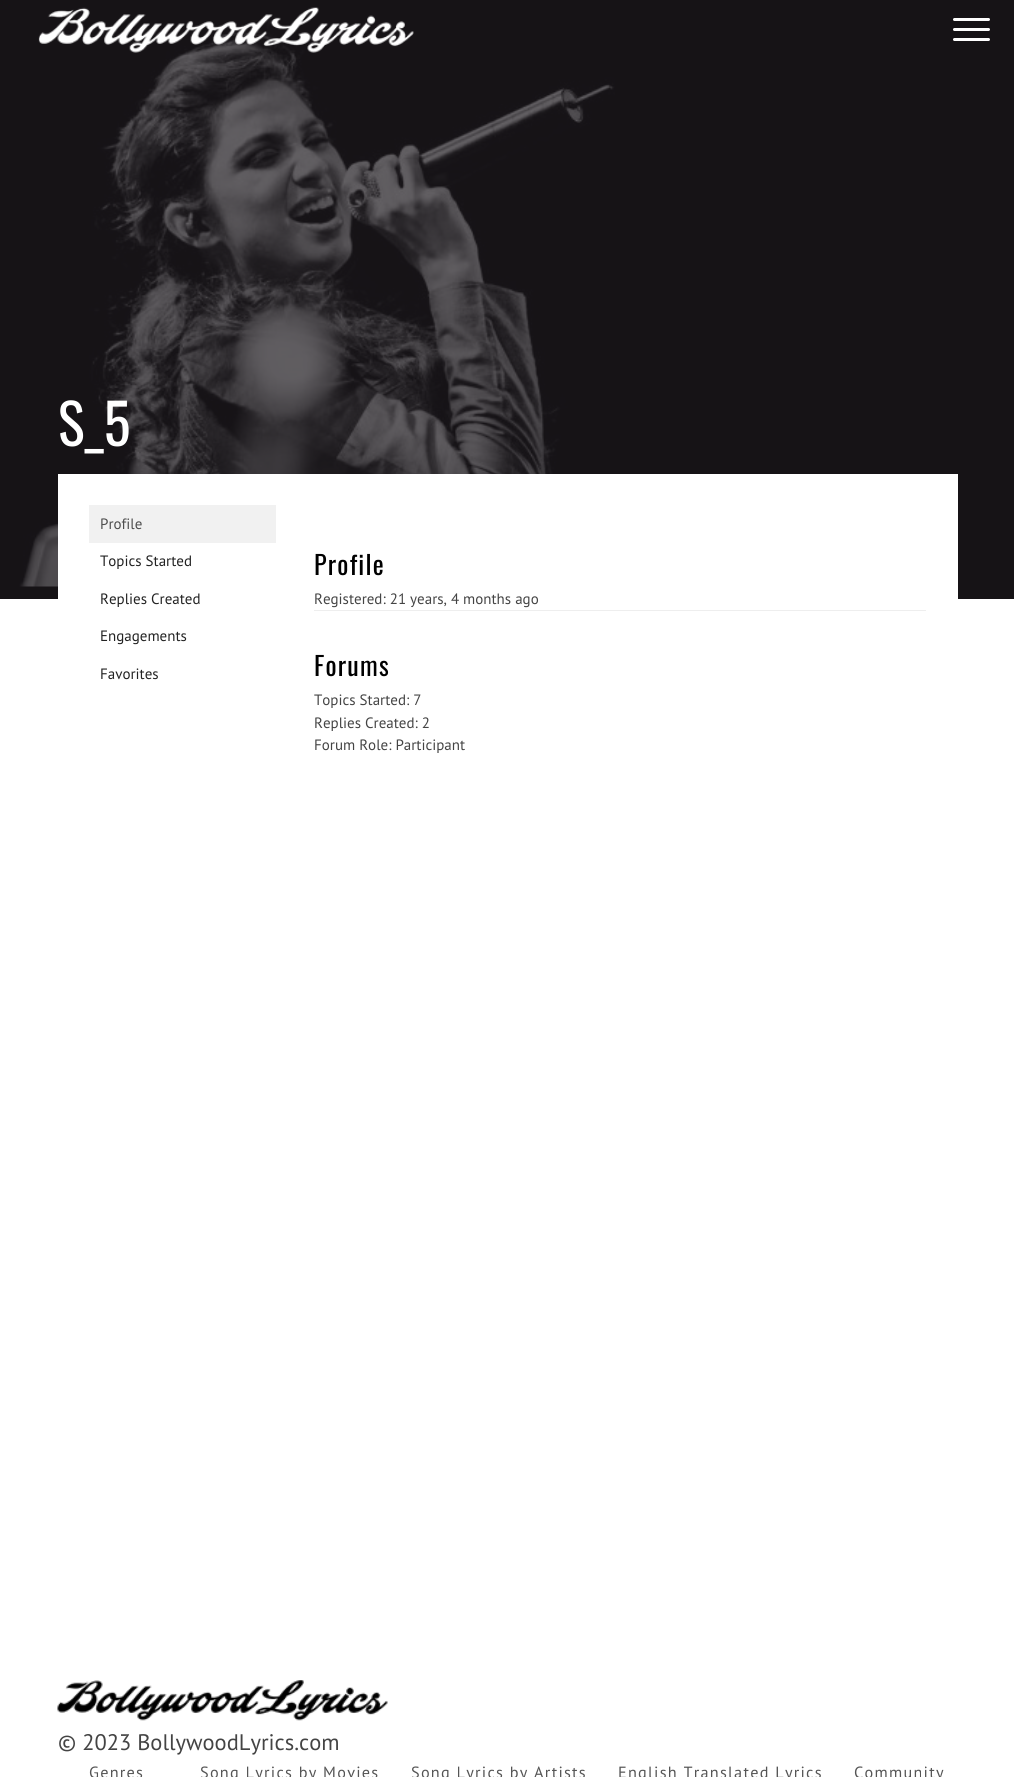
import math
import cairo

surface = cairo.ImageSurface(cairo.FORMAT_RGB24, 1014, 1777)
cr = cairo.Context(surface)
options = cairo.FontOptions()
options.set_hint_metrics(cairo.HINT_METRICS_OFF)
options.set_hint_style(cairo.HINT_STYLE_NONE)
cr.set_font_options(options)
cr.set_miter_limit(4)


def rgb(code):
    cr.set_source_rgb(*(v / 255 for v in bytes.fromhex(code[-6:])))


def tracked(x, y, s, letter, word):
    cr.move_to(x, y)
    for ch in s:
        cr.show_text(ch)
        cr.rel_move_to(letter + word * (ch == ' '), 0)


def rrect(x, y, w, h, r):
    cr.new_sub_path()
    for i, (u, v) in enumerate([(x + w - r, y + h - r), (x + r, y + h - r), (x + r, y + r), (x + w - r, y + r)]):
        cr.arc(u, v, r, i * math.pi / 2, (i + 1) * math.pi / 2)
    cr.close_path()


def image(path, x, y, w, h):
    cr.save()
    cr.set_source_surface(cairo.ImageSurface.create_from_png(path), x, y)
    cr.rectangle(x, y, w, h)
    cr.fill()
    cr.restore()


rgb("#ffffff")
cr.paint()
rgb("#161316")
cr.rectangle(0, 0, 1014, 599)
cr.fill()
rgb("#ffffff")
rrect(953, 18, 37, 3, 1.5)
cr.fill()
rrect(953, 28, 37, 3, 1.5)
cr.fill()
rrect(953, 38, 37, 3, 1.5)
cr.fill()
image("img/1.png", 19, 19, 596, 568)
image("img/2.png", 38, 7, 376, 46)
for x, y, w, h, color in [
    (58, 474, 900, 125, "#ffffff"),
    (89, 505, 187, 38, "#f1f1f1"),
    (314, 610, 612, 1, "#eeeeee"),
]:
    rgb(color)
    cr.rectangle(x, y, w, h)
    cr.fill()
image("img/3.png", 57, 1680, 331, 41)
cr.select_font_face("Oswald")
cr.set_font_size(56)
rgb("#ffffff")
cr.move_to(58, 446)
cr.show_text("S_5")
cr.select_font_face("PT Sans")
cr.set_font_size(15)
rgb("#4e4e4e")
cr.move_to(100, 529)
cr.show_text("Profile")
rgb("#222222")
for x, y, s in [
    (100, 566, "Topics Started"),
    (100, 604, "Replies Created"),
    (100, 641, "Engagements"),
    (100, 679, "Favorites"),
]:
    cr.move_to(x, y)
    cr.show_text(s)
cr.select_font_face("Oswald")
cr.set_font_size(26)
rgb("#000000")
tracked(314, 575, "Profile", 1.25, 0)
cr.select_font_face("PT Sans")
cr.set_font_size(15)
rgb("#444444")
cr.move_to(314, 604)
cr.show_text("Registered: 21 years, 4 months ago")
cr.select_font_face("Oswald")
cr.set_font_size(26)
rgb("#000000")
tracked(314, 676, "Forums", 1.25, 0)
cr.select_font_face("PT Sans")
cr.set_font_size(15)
rgb("#444444")
for x, y, s in [
    (314, 705, "Topics Started: 7"),
    (314, 728, "Replies Created: 2"),
    (314, 750, "Forum Role: Participant"),
]:
    cr.move_to(x, y)
    cr.show_text(s)
cr.set_font_size(22.5)
cr.move_to(58, 1750)
cr.show_text("© 2023 BollywoodLyrics.com")
cr.set_font_size(16.25)
rgb("#555555")
for x, y, s in [
    (89, 1778, "Genres"),
    (200, 1778, "Song Lyrics by Movies"),
    (411, 1778, "Song Lyrics by Artists"),
    (618, 1778, "English Translated Lyrics"),
    (854, 1778, "Community"),
]:
    tracked(x, y, s, 1.25, 0)
surface.write_to_png("page.png")
